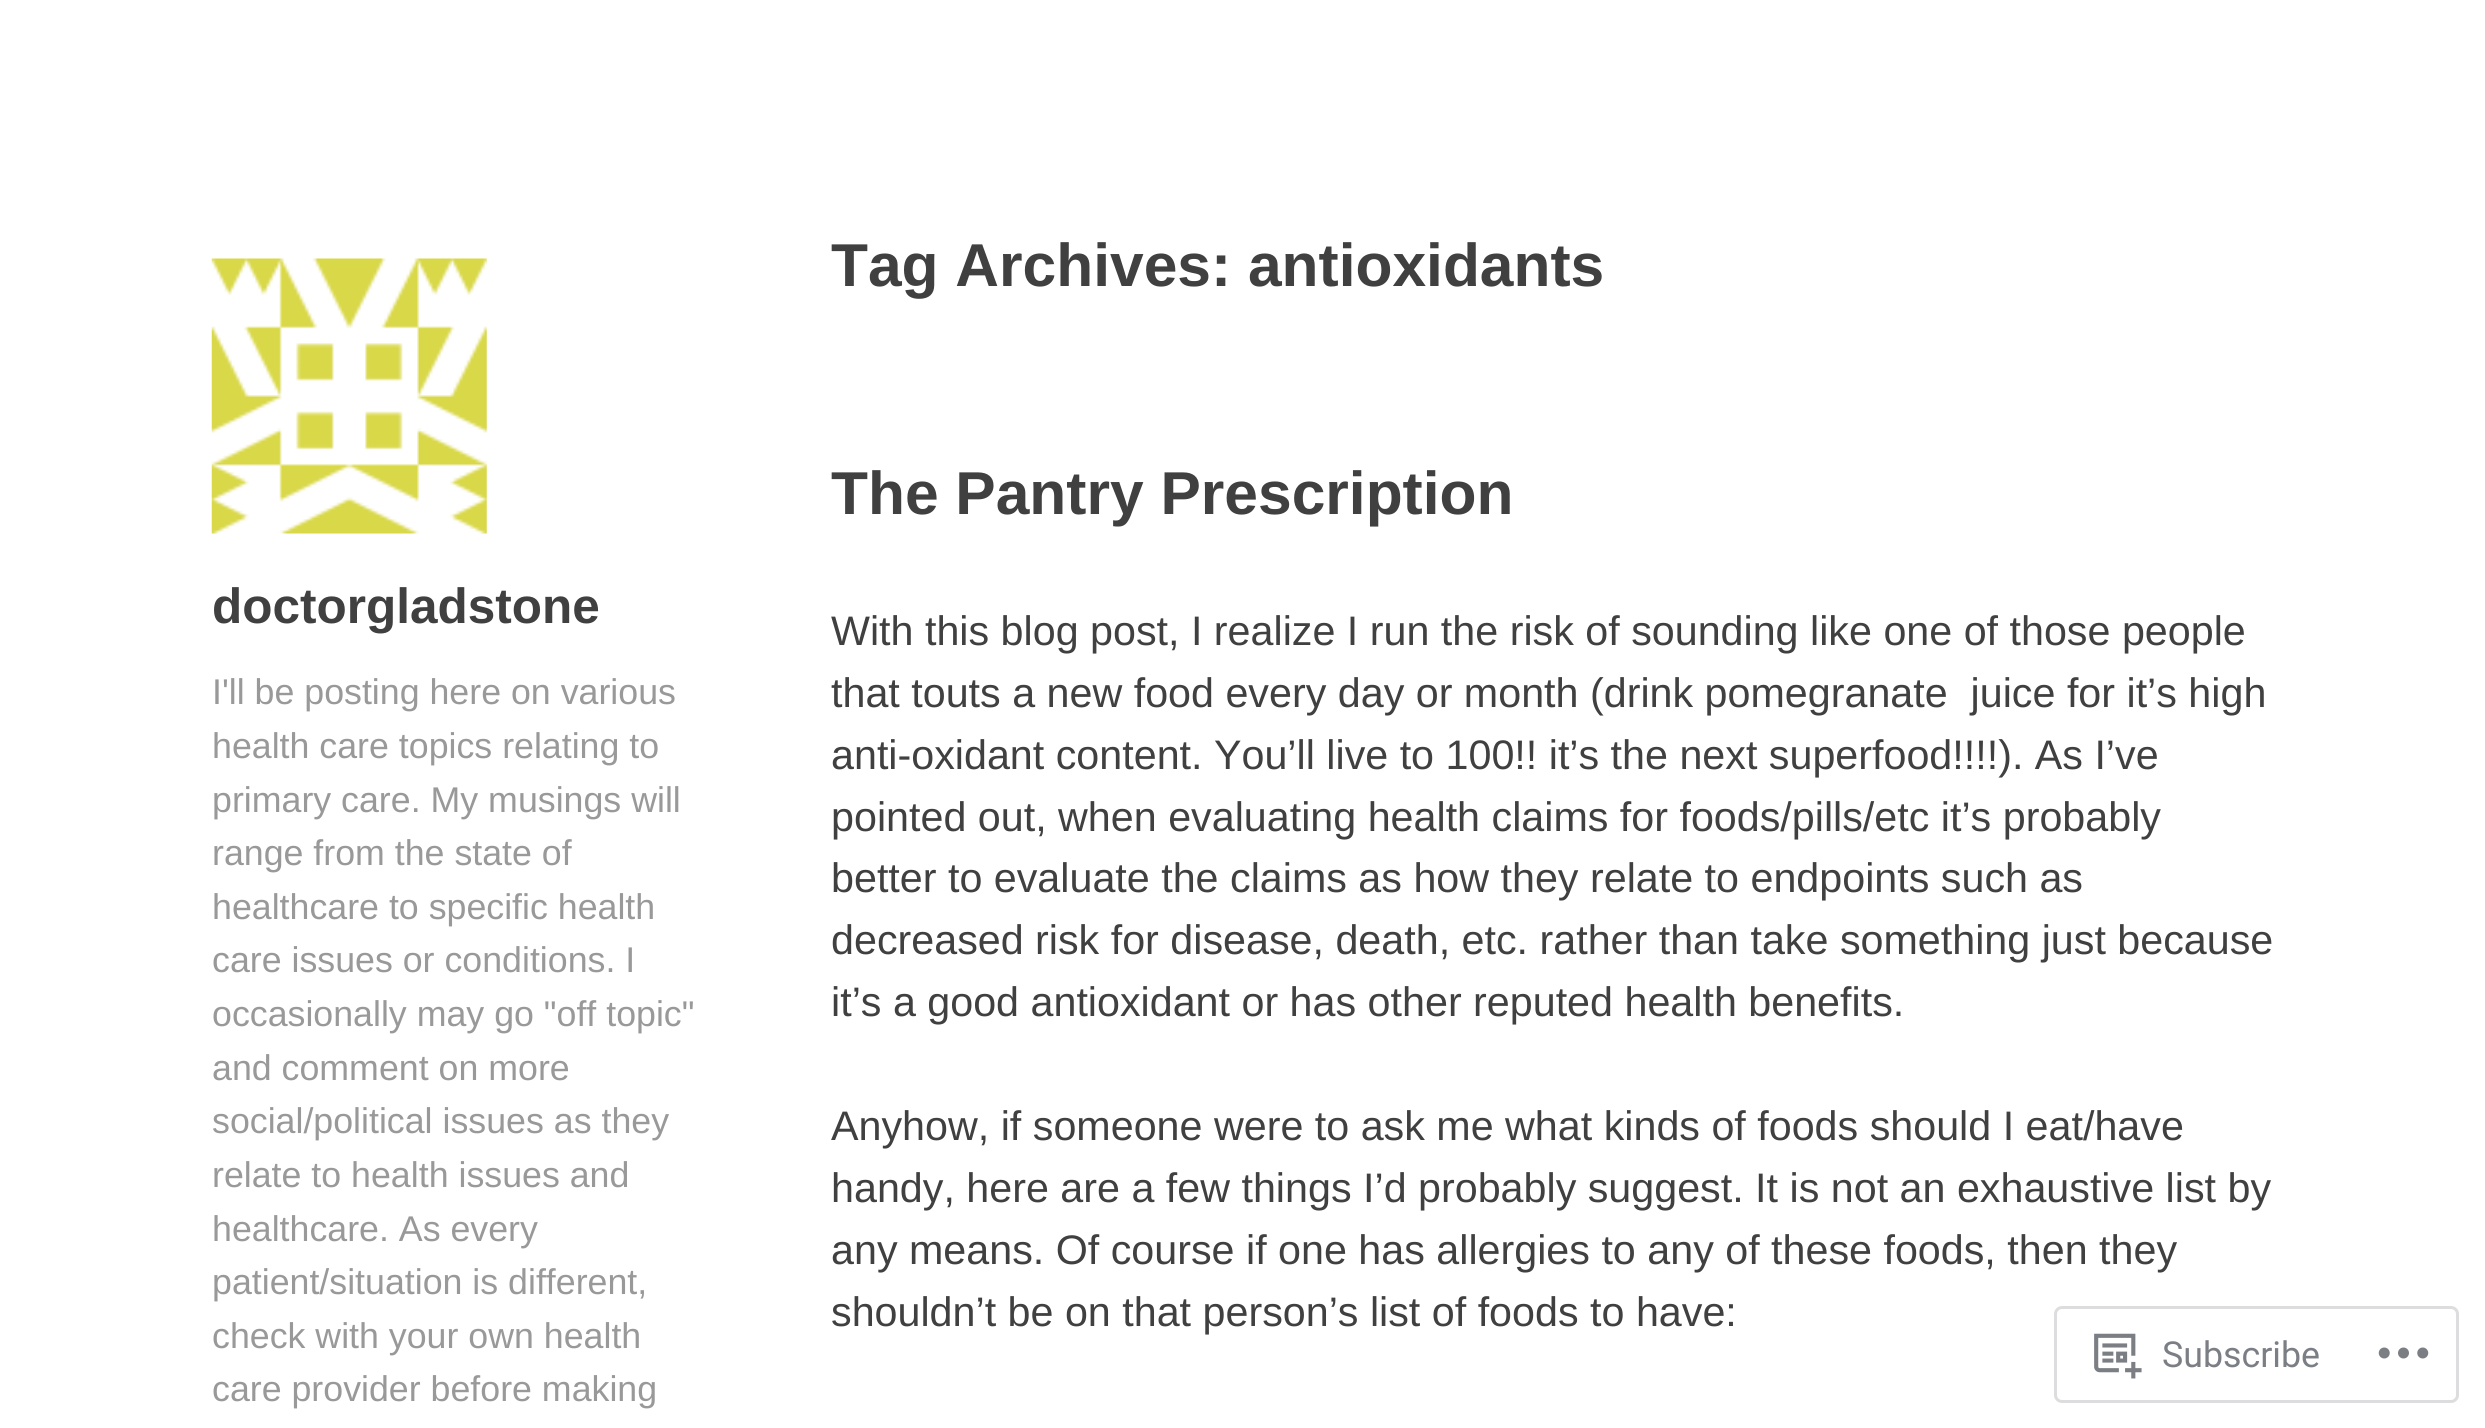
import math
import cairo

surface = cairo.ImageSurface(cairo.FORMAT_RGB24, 2485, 1428)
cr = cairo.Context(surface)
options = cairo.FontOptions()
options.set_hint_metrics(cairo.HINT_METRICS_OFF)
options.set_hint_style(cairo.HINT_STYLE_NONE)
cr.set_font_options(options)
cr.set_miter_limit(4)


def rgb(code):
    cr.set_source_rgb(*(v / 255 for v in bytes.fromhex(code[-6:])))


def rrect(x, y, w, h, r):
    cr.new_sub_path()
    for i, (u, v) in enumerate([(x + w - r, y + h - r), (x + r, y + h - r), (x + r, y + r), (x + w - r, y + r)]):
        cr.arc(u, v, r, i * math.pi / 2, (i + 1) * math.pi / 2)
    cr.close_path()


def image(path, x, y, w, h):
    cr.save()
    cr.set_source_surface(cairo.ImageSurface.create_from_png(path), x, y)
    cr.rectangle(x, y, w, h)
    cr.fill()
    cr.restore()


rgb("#ffffff")
cr.paint()
image("img/1.png", 211, 258, 276, 276)
rrect(2055.5, 1307.5, 402, 94, 6.5)
rgb("#dddddf")
cr.set_line_width(3)
cr.stroke()
image("img/2.png", 2094, 1333, 48, 46)
image("img/3.png", 2378, 1347, 51, 12)
cr.select_font_face("Liberation Sans", cairo.FONT_SLANT_NORMAL, cairo.FONT_WEIGHT_BOLD)
cr.set_font_size(49.5)
rgb("#404040")
cr.move_to(212, 623)
cr.show_text("doctorgladstone")
cr.select_font_face("Liberation Sans")
cr.set_font_size(35.75)
rgb("#999999")
for x, y, s in [
    (212, 704, "I'll be posting here on various"),
    (212, 758, "health care topics relating to"),
    (212, 812, "primary care. My musings will"),
    (212, 865, "range from the state of"),
    (212, 919, "healthcare to specific health"),
    (212, 972, "care issues or conditions. I"),
    (212, 1026, "occasionally may go \"off topic\""),
    (212, 1080, "and comment on more"),
    (212, 1133, "social/political issues as they"),
    (212, 1187, "relate to health issues and"),
    (212, 1241, "healthcare. As every"),
    (212, 1294, "patient/situation is different,"),
    (212, 1348, "check with your own health"),
    (212, 1401, "care provider before making"),
]:
    cr.move_to(x, y)
    cr.show_text(s)
cr.select_font_face("Liberation Sans", cairo.FONT_SLANT_NORMAL, cairo.FONT_WEIGHT_BOLD)
cr.set_font_size(60.5)
rgb("#404040")
cr.move_to(831, 286)
cr.show_text("Tag Archives: antioxidants")
cr.move_to(831, 514)
cr.show_text("The Pantry Prescription")
cr.select_font_face("Liberation Sans")
cr.set_font_size(41.25)
for x, y, s in [
    (831, 645, "With this blog post, I realize I run the risk of sounding like one of those people"),
    (831, 707, "that touts a new food every day or month (drink pomegranate  juice for it’s high"),
    (831, 769, "anti-oxidant content. You’ll live to 100!! it’s the next superfood!!!!). As I’ve"),
    (831, 831, "pointed out, when evaluating health claims for foods/pills/etc it’s probably"),
    (831, 892, "better to evaluate the claims as how they relate to endpoints such as"),
    (831, 954, "decreased risk for disease, death, etc. rather than take something just because"),
    (831, 1016, "it’s a good antioxidant or has other reputed health benefits."),
    (831, 1140, "Anyhow, if someone were to ask me what kinds of foods should I eat/have"),
    (831, 1202, "handy, here are a few things I’d probably suggest. It is not an exhaustive list by"),
    (831, 1264, "any means. Of course if one has allergies to any of these foods, then they"),
    (831, 1326, "shouldn’t be on that person’s list of foods to have:"),
]:
    cr.move_to(x, y)
    cr.show_text(s)
cr.select_font_face("Roboto")
cr.set_font_size(35.75)
rgb("#7b7f85")
cr.move_to(2162, 1367)
cr.show_text("Subscribe")
surface.write_to_png("page.png")
